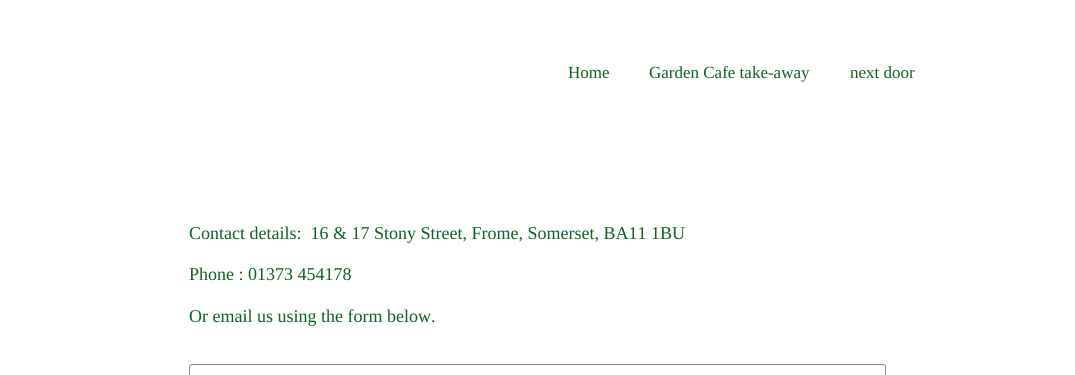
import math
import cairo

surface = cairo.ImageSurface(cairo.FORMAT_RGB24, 1075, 375)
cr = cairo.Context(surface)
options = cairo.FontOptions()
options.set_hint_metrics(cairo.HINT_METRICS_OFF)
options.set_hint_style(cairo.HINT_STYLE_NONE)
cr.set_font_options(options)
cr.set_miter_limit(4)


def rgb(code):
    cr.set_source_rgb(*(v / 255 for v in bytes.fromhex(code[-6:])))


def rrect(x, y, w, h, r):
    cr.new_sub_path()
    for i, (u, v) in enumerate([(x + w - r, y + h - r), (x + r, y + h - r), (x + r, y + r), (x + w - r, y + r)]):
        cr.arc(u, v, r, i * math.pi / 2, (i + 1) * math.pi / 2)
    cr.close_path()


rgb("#ffffff")
cr.paint()
rrect(189.5, 364.5, 696, 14, 2.5)
rgb("#818a91")
cr.set_line_width(1)
cr.stroke()
cr.select_font_face("Liberation Serif")
cr.set_font_size(17)
rgb("#0c6221")
for x, y, s in [
    (568, 78, "Home"),
    (649, 78, "Garden Cafe take-away"),
    (850, 78, "next door"),
]:
    cr.move_to(x, y)
    cr.show_text(s)
cr.set_font_size(18)
for x, y, s in [
    (189, 239, "Contact details:  16 & 17 Stony Street, Frome, Somerset, BA11 1BU"),
    (189, 280, "Phone : 01373 454178"),
    (189, 322, "Or email us using the form below."),
]:
    cr.move_to(x, y)
    cr.show_text(s)
surface.write_to_png("page.png")
